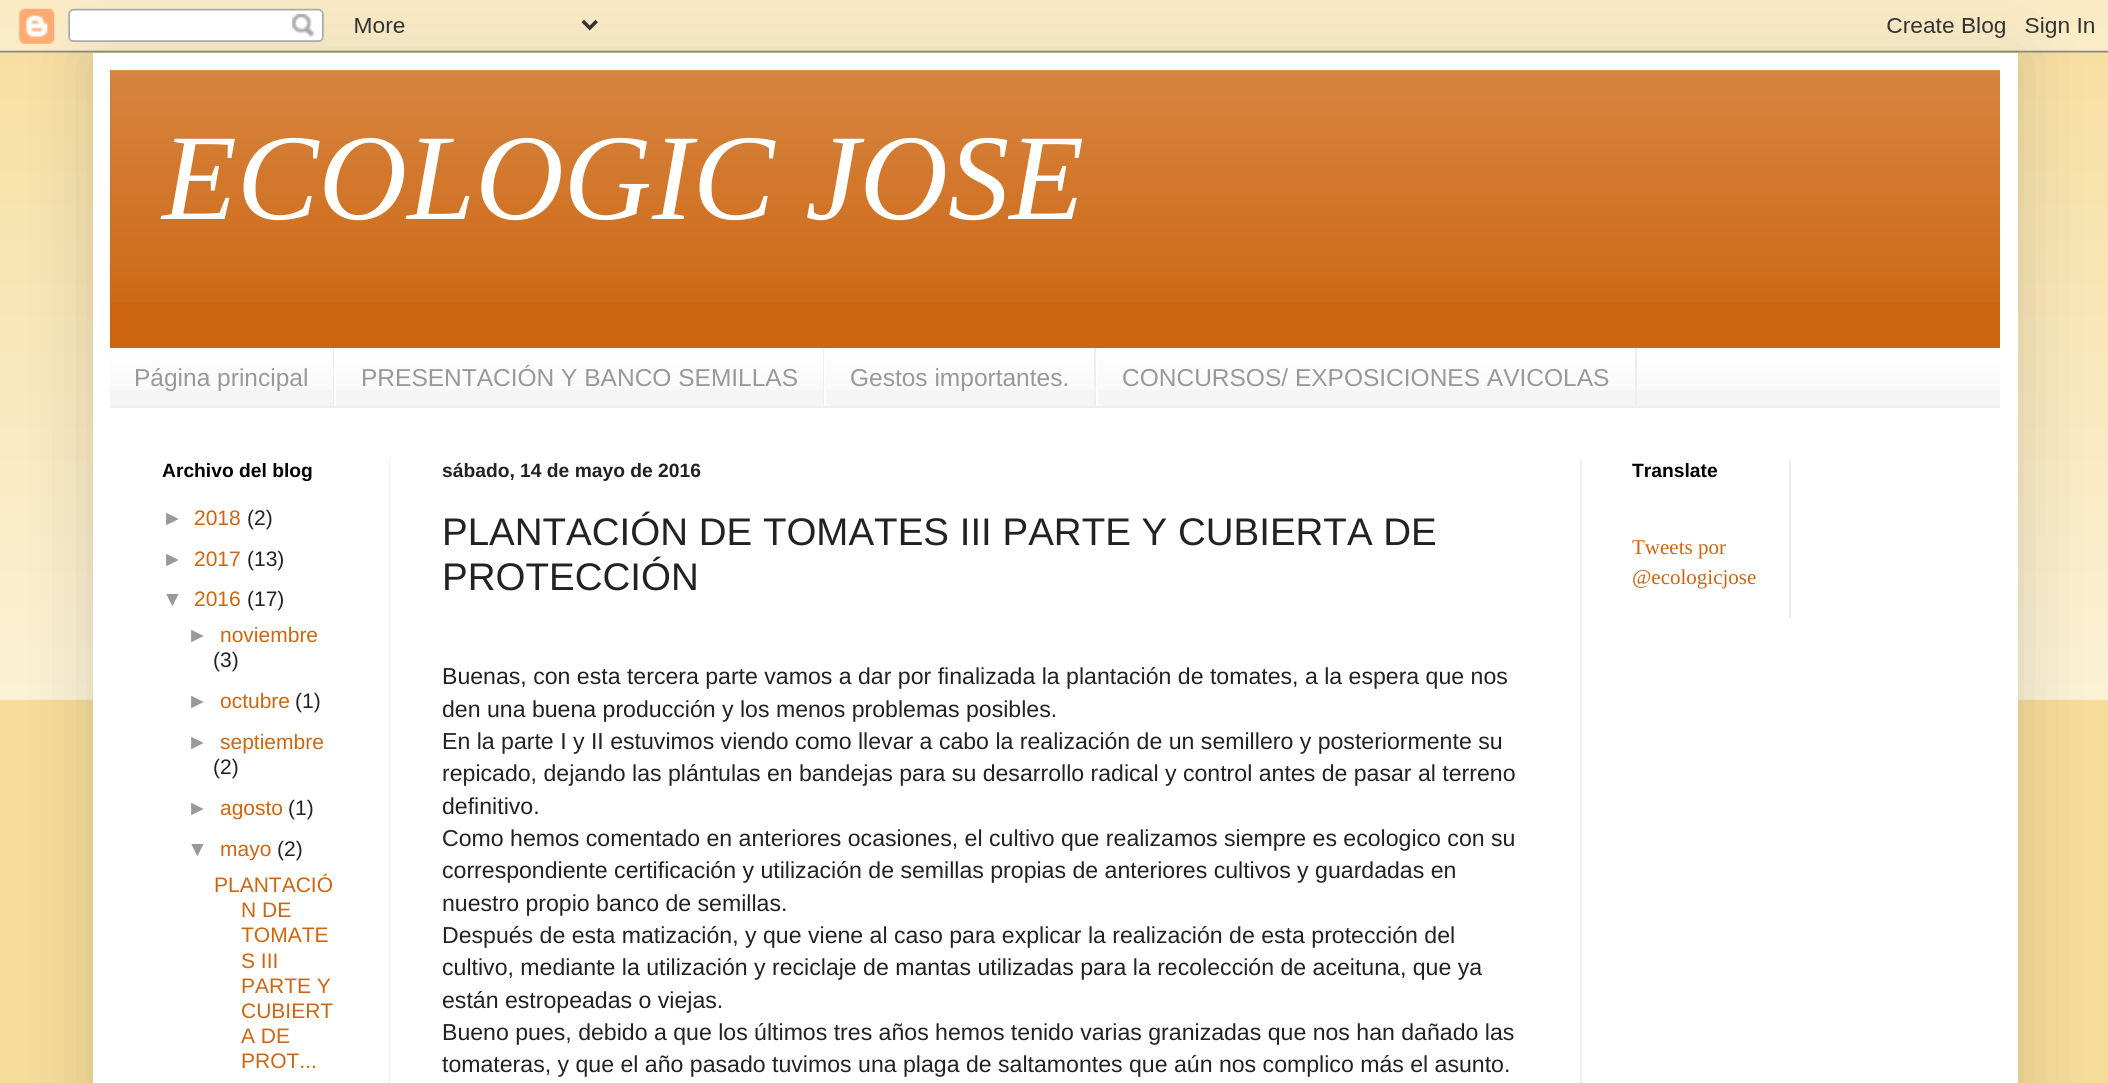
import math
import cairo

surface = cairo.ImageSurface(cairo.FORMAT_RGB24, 2108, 1083)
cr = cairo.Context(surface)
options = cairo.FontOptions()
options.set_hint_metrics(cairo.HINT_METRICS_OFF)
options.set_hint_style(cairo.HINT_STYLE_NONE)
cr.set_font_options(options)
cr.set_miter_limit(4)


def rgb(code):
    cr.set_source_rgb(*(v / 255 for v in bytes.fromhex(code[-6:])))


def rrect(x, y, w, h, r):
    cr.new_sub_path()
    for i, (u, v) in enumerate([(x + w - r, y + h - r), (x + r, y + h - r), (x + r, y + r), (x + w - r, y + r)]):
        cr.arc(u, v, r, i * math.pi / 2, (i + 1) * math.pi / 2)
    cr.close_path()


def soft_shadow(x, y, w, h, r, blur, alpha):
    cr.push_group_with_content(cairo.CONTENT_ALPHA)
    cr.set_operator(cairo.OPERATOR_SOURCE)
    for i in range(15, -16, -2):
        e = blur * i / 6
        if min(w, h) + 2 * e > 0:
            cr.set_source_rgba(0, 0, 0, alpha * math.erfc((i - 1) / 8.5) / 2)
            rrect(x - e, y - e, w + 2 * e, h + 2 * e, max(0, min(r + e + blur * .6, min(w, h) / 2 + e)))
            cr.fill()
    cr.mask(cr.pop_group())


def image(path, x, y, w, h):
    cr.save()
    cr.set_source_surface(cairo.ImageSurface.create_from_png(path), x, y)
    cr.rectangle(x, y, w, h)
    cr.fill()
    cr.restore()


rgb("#f6dc99")
cr.paint()
image("img/1.png", 0, 0, 2108, 700)
rgb("#000000")
soft_shadow(93, 53, 1925, 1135, 0, 35, 0.15)
image("img/2.png", 0, 0, 2108, 53)
rgb("#ffffff")
cr.rectangle(93, 53, 1925, 1030)
cr.fill()
rgb("#cc6611")
cr.rectangle(110, 70, 1890, 278)
cr.fill()
image("img/3.png", 110, 70, 1890, 233)
rgb("#f5f5f5")
cr.rectangle(110, 348, 1890, 58)
cr.fill()
image("img/4.png", 110, 348, 1890, 42)
for x, y, w, h, color in [
    (110, 406, 1890, 2, "#eeeeee"),
    (333, 348, 1, 58, "#eeeeee"),
    (823, 348, 1, 58, "#eeeeee"),
    (334, 348, 2, 58, "#ffffff"),
    (1094, 348, 2, 58, "#eeeeee"),
    (824, 348, 2, 58, "#ffffff"),
    (1635, 348, 2, 58, "#eeeeee"),
    (1096, 348, 2, 58, "#ffffff"),
    (389, 460, 1, 623, "#eeeeee"),
    (1580, 460, 2, 623, "#eeeeee"),
    (1789, 460, 2, 158, "#eeeeee"),
]:
    rgb(color)
    cr.rectangle(x, y, w, h)
    cr.fill()
cr.select_font_face("Liberation Serif", cairo.FONT_SLANT_ITALIC)
cr.set_font_size(122.5)
rgb("#ffffff")
cr.move_to(162, 219)
cr.show_text("ECOLOGIC JOSE")
cr.select_font_face("Liberation Sans")
cr.set_font_size(24.5)
rgb("#999999")
for x, y, s in [
    (134, 386, "Página principal"),
    (361, 386, "PRESENTACIÓN Y BANCO SEMILLAS"),
    (850, 386, "Gestos importantes."),
    (1122, 386, "CONCURSOS/ EXPOSICIONES AVICOLAS"),
]:
    cr.move_to(x, y)
    cr.show_text(s)
cr.select_font_face("Liberation Sans", cairo.FONT_SLANT_NORMAL, cairo.FONT_WEIGHT_BOLD)
cr.set_font_size(19.25)
rgb("#000000")
cr.move_to(162, 477)
cr.show_text("Archivo del blog")
cr.select_font_face("Liberation Sans")
cr.set_font_size(21)
rgb("#999999")
cr.move_to(162, 525)
cr.show_text("►")
rgb("#cc6611")
cr.move_to(194, 525)
cr.show_text("2018")
rgb("#222222")
cr.move_to(247, 525)
cr.show_text("(2)")
rgb("#999999")
cr.move_to(162, 566)
cr.show_text("►")
rgb("#cc6611")
cr.move_to(194, 566)
cr.show_text("2017")
rgb("#222222")
cr.move_to(247, 566)
cr.show_text("(13)")
rgb("#999999")
cr.move_to(162, 606)
cr.show_text("▼")
rgb("#cc6611")
cr.move_to(194, 606)
cr.show_text("2016")
rgb("#222222")
cr.move_to(247, 606)
cr.show_text("(17)")
rgb("#999999")
cr.move_to(187, 642)
cr.show_text("►")
rgb("#cc6611")
cr.move_to(220, 642)
cr.show_text("noviembre")
rgb("#222222")
cr.move_to(213, 667)
cr.show_text("(3)")
rgb("#999999")
cr.move_to(187, 708)
cr.show_text("►")
rgb("#cc6611")
cr.move_to(220, 708)
cr.show_text("octubre")
rgb("#222222")
cr.move_to(295, 708)
cr.show_text("(1)")
rgb("#999999")
cr.move_to(187, 749)
cr.show_text("►")
rgb("#cc6611")
cr.move_to(220, 749)
cr.show_text("septiembre")
rgb("#222222")
cr.move_to(213, 774)
cr.show_text("(2)")
rgb("#999999")
cr.move_to(187, 815)
cr.show_text("►")
rgb("#cc6611")
cr.move_to(220, 815)
cr.show_text("agosto")
rgb("#222222")
cr.move_to(288, 815)
cr.show_text("(1)")
rgb("#999999")
cr.move_to(187, 856)
cr.show_text("▼")
rgb("#cc6611")
cr.move_to(220, 856)
cr.show_text("mayo")
rgb("#222222")
cr.move_to(277, 856)
cr.show_text("(2)")
rgb("#cc6611")
for x, y, s in [
    (214, 892, "PLANTACIÓ"),
    (241, 917, "N DE"),
    (241, 942, "TOMATE"),
    (241, 968, "S III"),
    (241, 993, "PARTE Y"),
    (241, 1018, "CUBIERT"),
    (241, 1043, "A DE"),
    (241, 1068, "PROT..."),
]:
    cr.move_to(x, y)
    cr.show_text(s)
cr.select_font_face("Liberation Sans", cairo.FONT_SLANT_NORMAL, cairo.FONT_WEIGHT_BOLD)
cr.set_font_size(19.25)
rgb("#222222")
cr.move_to(442, 477)
cr.show_text("sábado, 14 de mayo de 2016")
cr.select_font_face("Liberation Sans")
cr.set_font_size(38.5)
cr.move_to(442, 545)
cr.show_text("PLANTACIÓN DE TOMATES III PARTE Y CUBIERTA DE")
cr.move_to(442, 590)
cr.show_text("PROTECCIÓN")
cr.set_font_size(23.1)
for x, y, s in [
    (442, 684, "Buenas, con esta tercera parte vamos a dar por finalizada la plantación de tomates, a la espera que nos"),
    (442, 717, "den una buena producción y los menos problemas posibles."),
    (442, 749, "En la parte I y II estuvimos viendo como llevar a cabo la realización de un semillero y posteriormente su"),
    (442, 781, "repicado, dejando las plántulas en bandejas para su desarrollo radical y control antes de pasar al terreno"),
    (442, 814, "definitivo."),
    (442, 846, "Como hemos comentado en anteriores ocasiones, el cultivo que realizamos siempre es ecologico con su"),
    (442, 878, "correspondiente certificación y utilización de semillas propias de anteriores cultivos y guardadas en"),
    (442, 911, "nuestro propio banco de semillas."),
    (442, 943, "Después de esta matización, y que viene al caso para explicar la realización de esta protección del"),
    (442, 975, "cultivo, mediante la utilización y reciclaje de mantas utilizadas para la recolección de aceituna, que ya"),
    (442, 1008, "están estropeadas o viejas."),
    (442, 1040, "Bueno pues, debido a que los últimos tres años hemos tenido varias granizadas que nos han dañado las"),
    (442, 1072, "tomateras, y que el año pasado tuvimos una plaga de saltamontes que aún nos complico más el asunto."),
]:
    cr.move_to(x, y)
    cr.show_text(s)
cr.select_font_face("Liberation Sans", cairo.FONT_SLANT_NORMAL, cairo.FONT_WEIGHT_BOLD)
cr.set_font_size(19.25)
rgb("#000000")
cr.move_to(1632, 477)
cr.show_text("Translate")
cr.select_font_face("Liberation Serif")
cr.set_font_size(21)
rgb("#cc6611")
cr.move_to(1632, 554)
cr.show_text("Tweets por")
cr.move_to(1632, 584)
cr.show_text("@ecologicjose")
surface.write_to_png("page.png")
